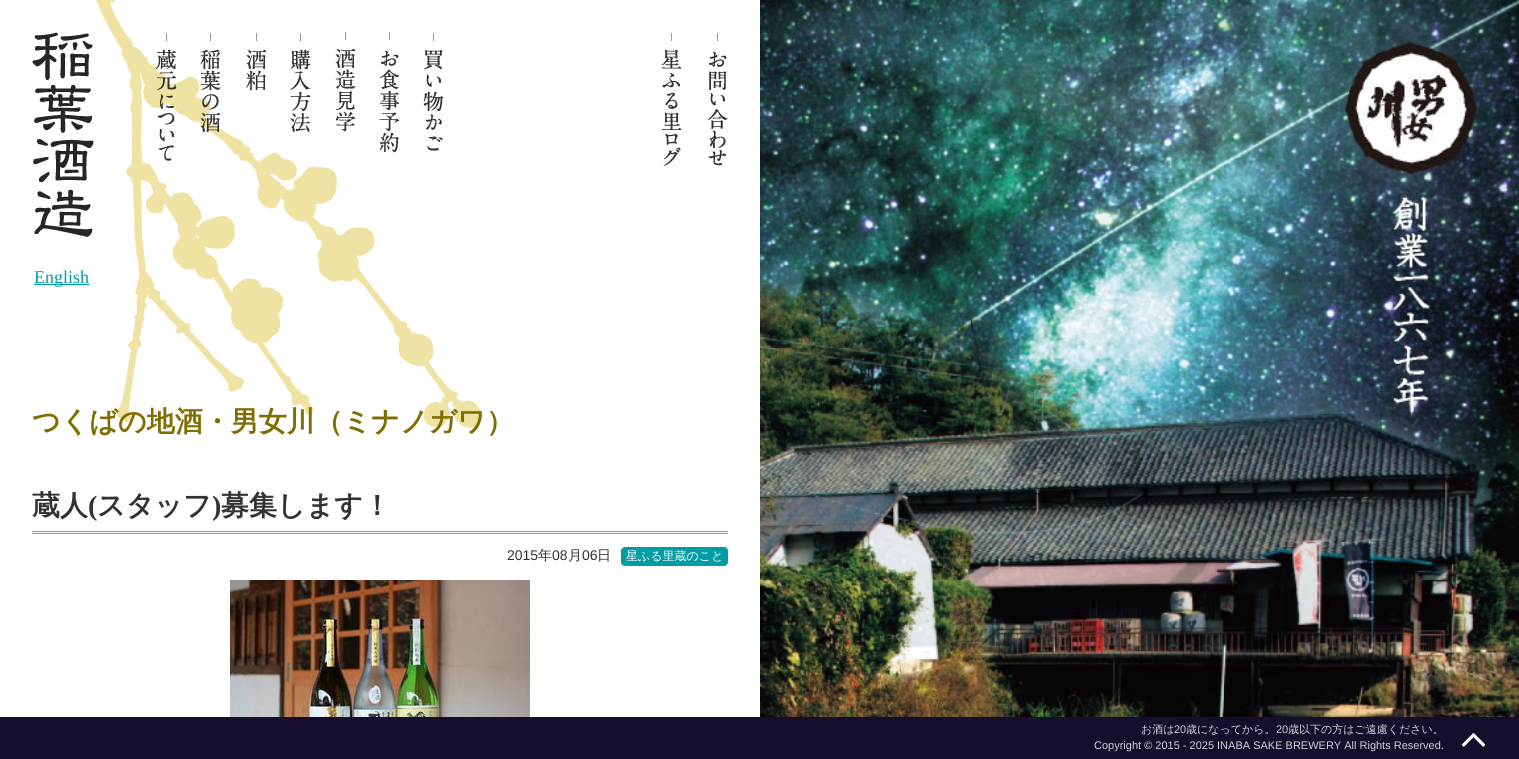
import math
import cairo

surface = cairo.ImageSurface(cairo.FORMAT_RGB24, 1519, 759)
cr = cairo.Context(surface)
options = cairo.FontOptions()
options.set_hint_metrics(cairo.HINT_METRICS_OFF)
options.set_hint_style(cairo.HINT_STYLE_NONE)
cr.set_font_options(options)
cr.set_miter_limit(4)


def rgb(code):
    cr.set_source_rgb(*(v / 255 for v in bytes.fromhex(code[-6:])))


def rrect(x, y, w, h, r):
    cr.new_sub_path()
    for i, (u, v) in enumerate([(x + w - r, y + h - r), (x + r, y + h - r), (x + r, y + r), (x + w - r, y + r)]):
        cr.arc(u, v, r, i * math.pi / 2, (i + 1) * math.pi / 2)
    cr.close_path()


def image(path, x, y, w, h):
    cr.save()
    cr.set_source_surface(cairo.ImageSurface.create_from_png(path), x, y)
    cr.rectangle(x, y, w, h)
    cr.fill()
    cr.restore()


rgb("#ffffff")
cr.paint()
image("img/1.png", 96, 0, 386, 428)
image("img/2.png", 156, 33, 21, 128)
image("img/3.png", 200, 33, 21, 99)
image("img/4.png", 246, 33, 21, 58)
image("img/5.png", 290, 33, 21, 99)
image("img/6.png", 335, 32, 21, 100)
image("img/7.png", 379, 32, 21, 121)
image("img/8.png", 423, 33, 20, 118)
image("img/9.png", 661, 33, 21, 133)
image("img/10.png", 708, 33, 20, 133)
image("img/11.png", 32, 32, 62, 205)
for x, y, w, h, color in [
    (34, 284, 55, 1, "#009da5"),
    (32, 531, 696, 1, "#80a2b3"),
    (32, 533, 696, 1, "#80a2b3"),
]:
    rgb(color)
    cr.rectangle(x, y, w, h)
    cr.fill()
rgb("#009da5")
rrect(621, 547, 107, 19, 4)
cr.fill()
image("img/12.png", 230, 580, 300, 137)
image("img/13.png", 760, 0, 759, 717)
rgb("#170d2d")
cr.rectangle(0, 717, 1519, 42)
cr.fill()
image("img/14.png", 1461, 733, 25, 14)
cr.select_font_face("Liberation Serif")
cr.set_font_size(18)
rgb("#009da5")
cr.move_to(34, 283)
cr.show_text("English")
cr.select_font_face("WenQuanYi Zen Hei", cairo.FONT_SLANT_NORMAL, cairo.FONT_WEIGHT_BOLD)
cr.set_font_size(28)
rgb("#806d00")
cr.move_to(32, 431)
cr.show_text("つくばの地酒・男女川（ミナノガワ）")
rgb("#323232")
cr.move_to(32, 515)
cr.show_text("蔵人")
cr.select_font_face("Liberation Serif", cairo.FONT_SLANT_NORMAL, cairo.FONT_WEIGHT_BOLD)
cr.move_to(88, 515)
cr.show_text("(")
cr.select_font_face("WenQuanYi Zen Hei", cairo.FONT_SLANT_NORMAL, cairo.FONT_WEIGHT_BOLD)
cr.move_to(97, 515)
cr.show_text("スタッフ")
cr.select_font_face("Liberation Serif", cairo.FONT_SLANT_NORMAL, cairo.FONT_WEIGHT_BOLD)
cr.move_to(212, 515)
cr.show_text(")")
cr.select_font_face("WenQuanYi Zen Hei", cairo.FONT_SLANT_NORMAL, cairo.FONT_WEIGHT_BOLD)
cr.move_to(221, 515)
cr.show_text("募集します！")
cr.select_font_face("Liberation Sans")
cr.set_font_size(14)
cr.move_to(507, 560)
cr.show_text("2015")
cr.select_font_face("WenQuanYi Zen Hei Medium")
cr.move_to(538, 560)
cr.show_text("年")
cr.select_font_face("Liberation Sans")
cr.move_to(552, 560)
cr.show_text("08")
cr.select_font_face("WenQuanYi Zen Hei Medium")
cr.move_to(568, 560)
cr.show_text("月")
cr.select_font_face("Liberation Sans")
cr.move_to(582, 560)
cr.show_text("06")
cr.select_font_face("WenQuanYi Zen Hei Medium")
cr.move_to(597, 560)
cr.show_text("日")
cr.set_font_size(12)
rgb("#ffffff")
cr.move_to(626, 560)
cr.show_text("星ふる里蔵のこと")
cr.set_font_size(11)
rgb("#d2cfd8")
cr.move_to(1141, 733)
cr.show_text("お酒は")
cr.select_font_face("Liberation Sans")
cr.move_to(1174, 733)
cr.show_text("20")
cr.select_font_face("WenQuanYi Zen Hei Medium")
cr.move_to(1186, 733)
cr.show_text("歳になってから。")
cr.select_font_face("Liberation Sans")
cr.move_to(1276, 733)
cr.show_text("20")
cr.select_font_face("WenQuanYi Zen Hei Medium")
cr.move_to(1288, 733)
cr.show_text("歳以下の方はご遠慮ください。")
cr.select_font_face("Liberation Sans")
cr.move_to(1094, 749)
cr.show_text("Copyright © 2015 - 2025 INABA SAKE BREWERY All Rights Reserved.")
surface.write_to_png("page.png")
